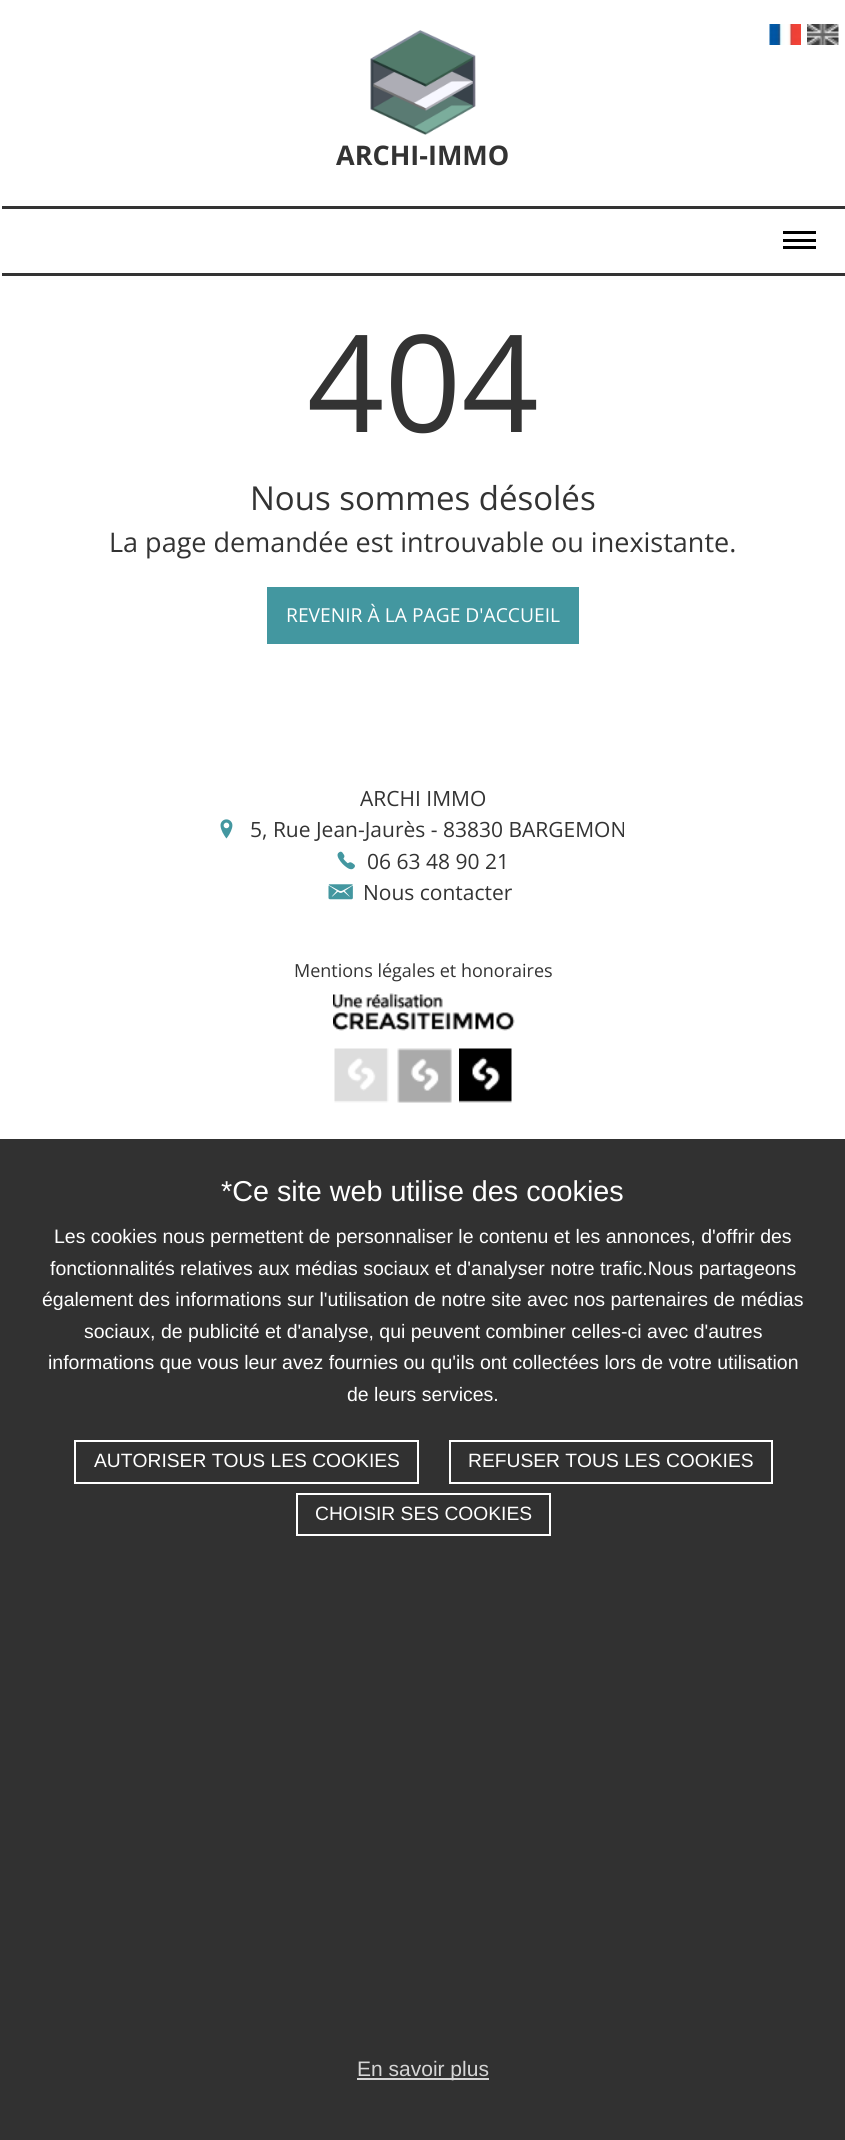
import math
import cairo

surface = cairo.ImageSurface(cairo.FORMAT_RGB24, 845, 2140)
cr = cairo.Context(surface)
options = cairo.FontOptions()
options.set_hint_metrics(cairo.HINT_METRICS_OFF)
options.set_hint_style(cairo.HINT_STYLE_NONE)
cr.set_font_options(options)
cr.set_miter_limit(4)


def rgb(code):
    cr.set_source_rgb(*(v / 255 for v in bytes.fromhex(code[-6:])))


def image(path, x, y, w, h):
    cr.save()
    cr.set_source_surface(cairo.ImageSurface.create_from_png(path), x, y)
    cr.rectangle(x, y, w, h)
    cr.fill()
    cr.restore()


rgb("#ffffff")
cr.paint()
image("img/1.png", 769, 24, 32, 21)
image("img/2.png", 807, 24, 32, 21)
image("img/3.png", 370, 30, 106, 105)
for x, y, w, h, color in [
    (2, 206, 843, 3, "#333333"),
    (2, 273, 843, 3, "#333333"),
    (783, 231, 33, 3, "#000000"),
    (783, 239, 33, 3, "#000000"),
    (783, 246, 33, 3, "#000000"),
    (267, 587, 312, 57, "#4397a0"),
]:
    rgb(color)
    cr.rectangle(x, y, w, h)
    cr.fill()
image("img/4.png", 220, 819, 13, 20)
image("img/5.png", 337, 851, 18, 19)
image("img/6.png", 328, 884, 25, 16)
image("img/7.png", 333, 993, 182, 38)
image("img/8.png", 334, 1048, 55, 55)
image("img/9.png", 397, 1048, 55, 55)
image("img/10.png", 459, 1048, 53, 55)
rgb("#313131")
cr.rectangle(0, 1139, 845, 1001)
cr.fill()
cr.rectangle(75, 1441, 343, 42)
rgb("#ffffff")
cr.stroke()
cr.rectangle(450, 1441, 322, 42)
cr.stroke()
cr.rectangle(297, 1494, 253, 41)
cr.stroke()
rgb("#d6d6d6")
cr.rectangle(357, 2078, 132, 2)
cr.fill()
cr.select_font_face("Open Sans", cairo.FONT_SLANT_NORMAL, cairo.FONT_WEIGHT_BOLD)
cr.set_font_size(27)
rgb("#333333")
cr.move_to(336, 165)
cr.show_text("ARCHI-IMMO")
cr.select_font_face("Open Sans")
cr.set_font_size(135)
cr.move_to(307, 432)
cr.show_text("404")
cr.set_font_size(33)
cr.move_to(250, 510)
cr.show_text("Nous sommes désolés")
cr.set_font_size(27)
cr.move_to(109, 552)
cr.show_text("La page demandée est introuvable ou inexistante.")
cr.set_font_size(19.25)
rgb("#ffffff")
cr.move_to(286, 622)
cr.show_text("REVENIR À LA PAGE D'ACCUEIL")
cr.set_font_size(21)
rgb("#333333")
for x, y, s in [
    (360, 806, "ARCHI IMMO"),
    (250, 837, "5, Rue Jean-Jaurès - 83830 BARGEMON"),
    (367, 869, "06 63 48 90 21"),
    (363, 900, "Nous contacter"),
]:
    cr.move_to(x, y)
    cr.show_text(s)
cr.set_font_size(18)
cr.move_to(294, 977)
cr.show_text("Mentions légales et honoraires")
cr.select_font_face("Liberation Sans")
cr.set_font_size(28.75)
rgb("#ffffff")
cr.move_to(221, 1201)
cr.show_text("*Ce site web utilise des cookies")
cr.set_font_size(19.5)
for x, y, s in [
    (54, 1243, "Les cookies nous permettent de personnaliser le contenu et les annonces, d'offrir des"),
    (50, 1275, "fonctionnalités relatives aux médias sociaux et d'analyser notre trafic.Nous partageons"),
    (42, 1306, "également des informations sur l'utilisation de notre site avec nos partenaires de médias"),
    (84, 1338, "sociaux, de publicité et d'analyse, qui peuvent combiner celles-ci avec d'autres"),
    (48, 1369, "informations que vous leur avez fournies ou qu'ils ont collectées lors de votre utilisation"),
    (347, 1401, "de leurs services."),
]:
    cr.move_to(x, y)
    cr.show_text(s)
cr.set_font_size(19.25)
for x, y, s in [
    (94, 1467, "AUTORISER TOUS LES COOKIES"),
    (468, 1467, "REFUSER TOUS LES COOKIES"),
    (315, 1520, "CHOISIR SES COOKIES"),
]:
    cr.move_to(x, y)
    cr.show_text(s)
cr.set_font_size(21)
rgb("#d6d6d6")
cr.move_to(357, 2076)
cr.show_text("En savoir plus")
surface.write_to_png("page.png")
